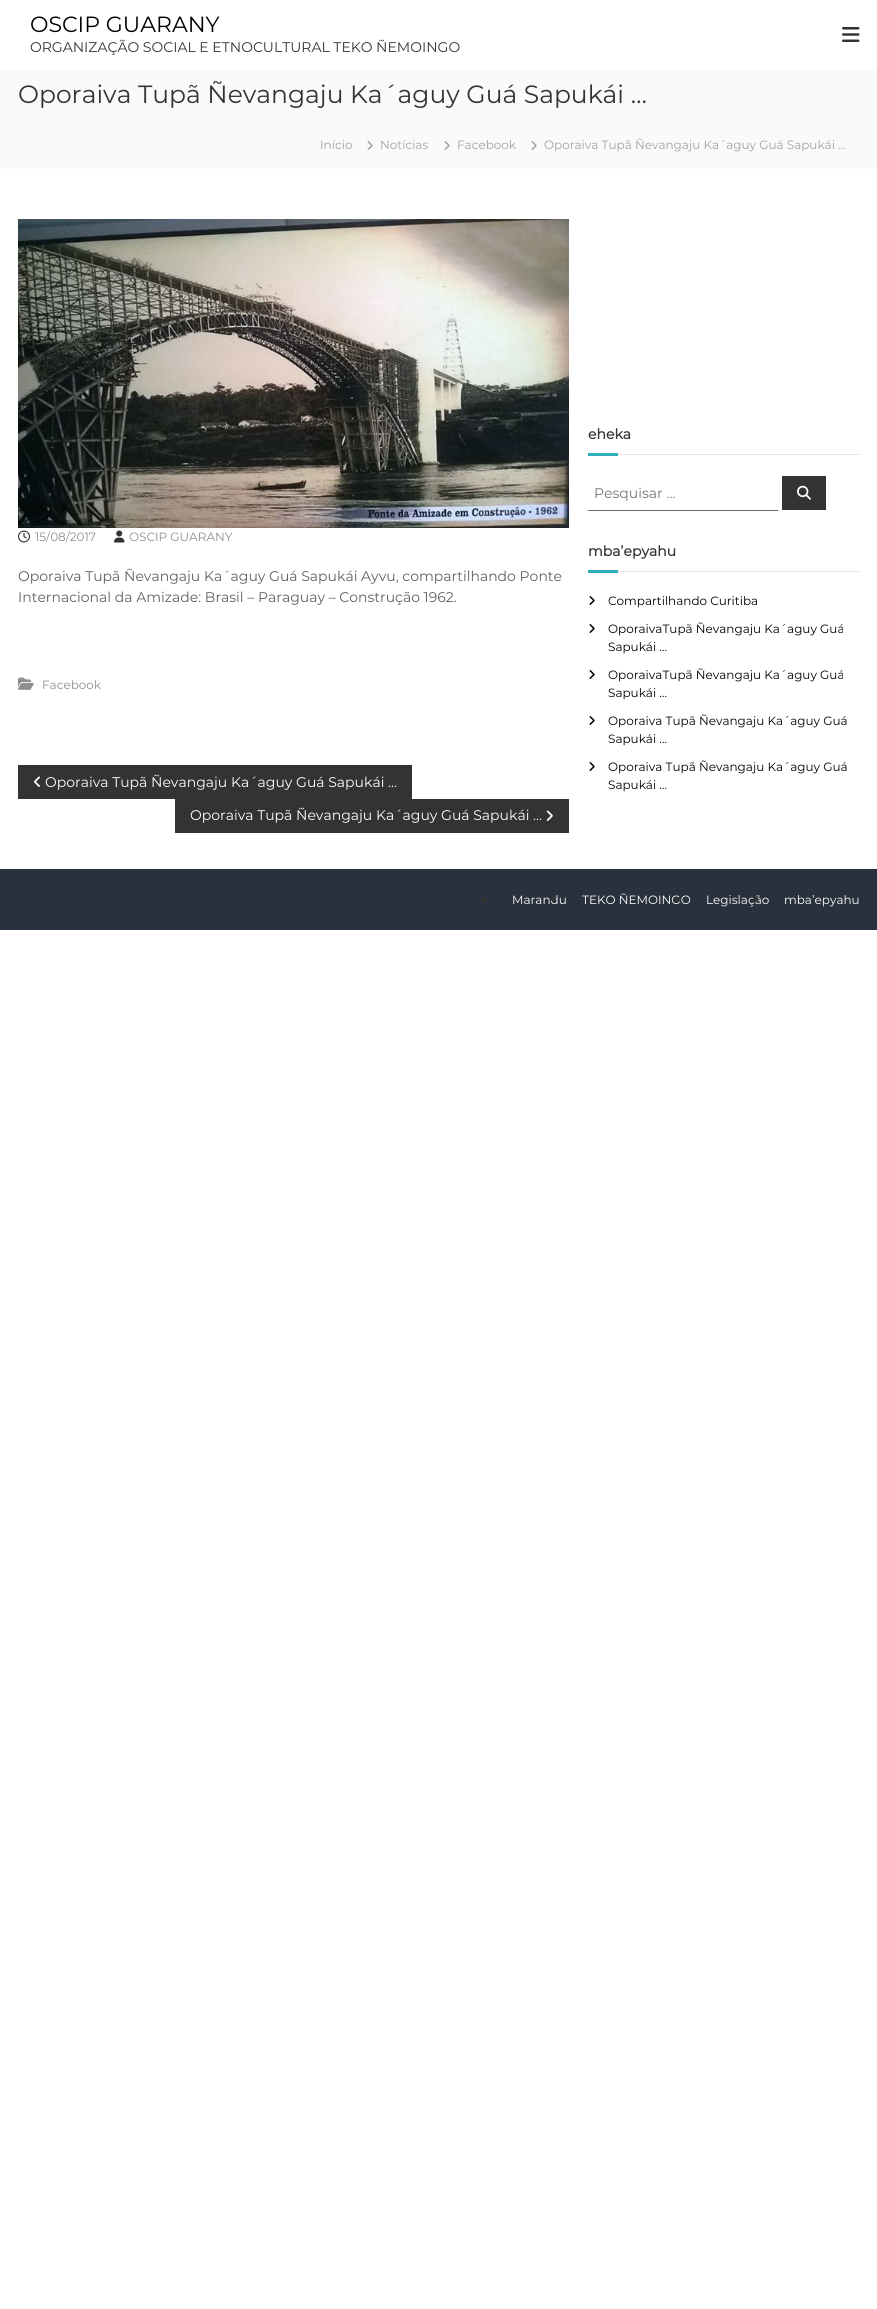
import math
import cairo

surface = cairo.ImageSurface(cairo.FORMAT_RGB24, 877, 2309)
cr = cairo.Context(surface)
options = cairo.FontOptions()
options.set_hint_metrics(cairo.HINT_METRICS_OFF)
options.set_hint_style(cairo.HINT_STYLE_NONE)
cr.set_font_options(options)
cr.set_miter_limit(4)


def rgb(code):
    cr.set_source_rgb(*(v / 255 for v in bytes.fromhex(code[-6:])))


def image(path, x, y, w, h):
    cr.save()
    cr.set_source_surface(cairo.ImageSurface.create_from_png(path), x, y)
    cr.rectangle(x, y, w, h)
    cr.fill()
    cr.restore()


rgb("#ffffff")
cr.paint()
image("img/1.png", 842, 27, 18, 15)
rgb("#fafafa")
cr.rectangle(0, 70, 877, 99)
cr.fill()
image("img/2.png", 367, 141, 6, 9)
image("img/2.png", 444, 141, 6, 9)
image("img/2.png", 531, 141, 6, 9)
image("img/3.png", 18, 219, 551, 309)
image("img/4.png", 18, 530, 12, 13)
image("img/5.png", 114, 530, 11, 13)
image("img/6.png", 18, 677, 16, 13)
rgb("#333333")
cr.rectangle(18, 765, 394, 34)
cr.fill()
image("img/7.png", 33, 776, 7, 11)
cr.rectangle(175, 799, 394, 34)
cr.fill()
image("img/8.png", 546, 810, 7, 11)
for x, y, w, h, color in [
    (588, 453, 30, 3, "#30afb8"),
    (618, 454, 241, 1, "#e1e1e1"),
    (588, 510, 190, 1, "#666666"),
    (782, 476, 44, 34, "#333333"),
]:
    rgb(color)
    cr.rectangle(x, y, w, h)
    cr.fill()
image("img/9.png", 797, 485, 14, 15)
rgb("#30afb8")
cr.rectangle(588, 570, 30, 3)
cr.fill()
rgb("#e1e1e1")
cr.rectangle(618, 571, 241, 1)
cr.fill()
image("img/10.png", 589, 596, 6, 9)
image("img/10.png", 589, 624, 6, 9)
image("img/10.png", 589, 670, 6, 9)
image("img/10.png", 589, 716, 6, 9)
image("img/10.png", 589, 762, 6, 9)
rgb("#28313d")
cr.rectangle(0, 869, 877, 61)
cr.fill()
rgb("#333333")
cr.arc(483.5, 899.5, 2.5, 0, 2 * math.pi)
cr.fill()
cr.select_font_face("Montserrat")
cr.set_font_size(22)
rgb("#000000")
cr.move_to(30, 32)
cr.show_text("OSCIP GUARANY")
cr.set_font_size(14)
rgb("#333333")
cr.move_to(30, 52)
cr.show_text("ORGANIZAÇÃO SOCIAL E ETNOCULTURAL TEKO ÑEMOINGO")
cr.set_font_size(25)
cr.move_to(18, 103)
cr.show_text("Oporaiva Tupã Ñevangaju Ka´aguy Guá Sapukái …")
cr.set_font_size(12)
rgb("#a1a1a1")
for x, y, s in [
    (320, 149, "Início"),
    (380, 149, "Notícias"),
    (457, 149, "Facebook"),
    (544, 149, "Oporaiva Tupã Ñevangaju Ka´aguy Guá Sapukái …"),
]:
    cr.move_to(x, y)
    cr.show_text(s)
rgb("#8e8e8e")
cr.move_to(35, 541)
cr.show_text("15/08/2017")
cr.move_to(129, 541)
cr.show_text("OSCIP GUARANY")
cr.set_font_size(14)
rgb("#606060")
cr.move_to(18, 581)
cr.show_text("Oporaiva Tupã Ñevangaju Ka´aguy Guá Sapukái Ayvu, compartilhando Ponte")
cr.move_to(18, 602)
cr.show_text("Internacional da Amizade: Brasil – Paraguay – Construção 1962.")
cr.set_font_size(12)
rgb("#8e8e8e")
cr.move_to(42, 689)
cr.show_text("Facebook")
cr.set_font_size(14)
rgb("#ffffff")
cr.move_to(45, 787)
cr.show_text("Oporaiva Tupã Ñevangaju Ka´aguy Guá Sapukái …")
cr.move_to(190, 820)
cr.show_text("Oporaiva Tupã Ñevangaju Ka´aguy Guá Sapukái …")
cr.select_font_face("Montserrat", cairo.FONT_SLANT_NORMAL, cairo.FONT_WEIGHT_BOLD)
rgb("#333333")
cr.move_to(588, 439)
cr.show_text("eheka")
cr.select_font_face("Montserrat")
rgb("#757575")
cr.move_to(594, 498)
cr.show_text("Pesquisar …")
cr.select_font_face("Montserrat", cairo.FONT_SLANT_NORMAL, cairo.FONT_WEIGHT_BOLD)
rgb("#333333")
cr.move_to(588, 556)
cr.show_text("mba’epyahu")
cr.select_font_face("Montserrat")
cr.set_font_size(12)
rgb("#000000")
for x, y, s in [
    (608, 605, "Compartilhando Curitiba"),
    (608, 633, "OporaivaTupã Ñevangaju Ka´aguy Guá"),
    (608, 651, "Sapukái …"),
    (608, 679, "OporaivaTupã Ñevangaju Ka´aguy Guá"),
    (608, 697, "Sapukái …"),
    (608, 725, "Oporaiva Tupã Ñevangaju Ka´aguy Guá"),
    (608, 743, "Sapukái …"),
    (608, 771, "Oporaiva Tupã Ñevangaju Ka´aguy Guá"),
    (608, 789, "Sapukái …"),
]:
    cr.move_to(x, y)
    cr.show_text(s)
rgb("#ffffff")
cr.move_to(512, 904)
cr.show_text("Marandu")
rgb("#333333")
cr.new_path()
cr.arc(553.5, 899.5, 2.5, 0, 2 * math.pi)
cr.fill()
rgb("#ffffff")
cr.move_to(582, 904)
cr.show_text("TEKO ÑEMOINGO")
rgb("#333333")
cr.new_path()
cr.arc(677.5, 899.5, 2.5, 0, 2 * math.pi)
cr.fill()
rgb("#ffffff")
cr.move_to(706, 904)
cr.show_text("Legislação")
rgb("#333333")
cr.new_path()
cr.arc(755.5, 899.5, 2.5, 0, 2 * math.pi)
cr.fill()
rgb("#ffffff")
cr.move_to(784, 904)
cr.show_text("mba’epyahu")
surface.write_to_png("page.png")
